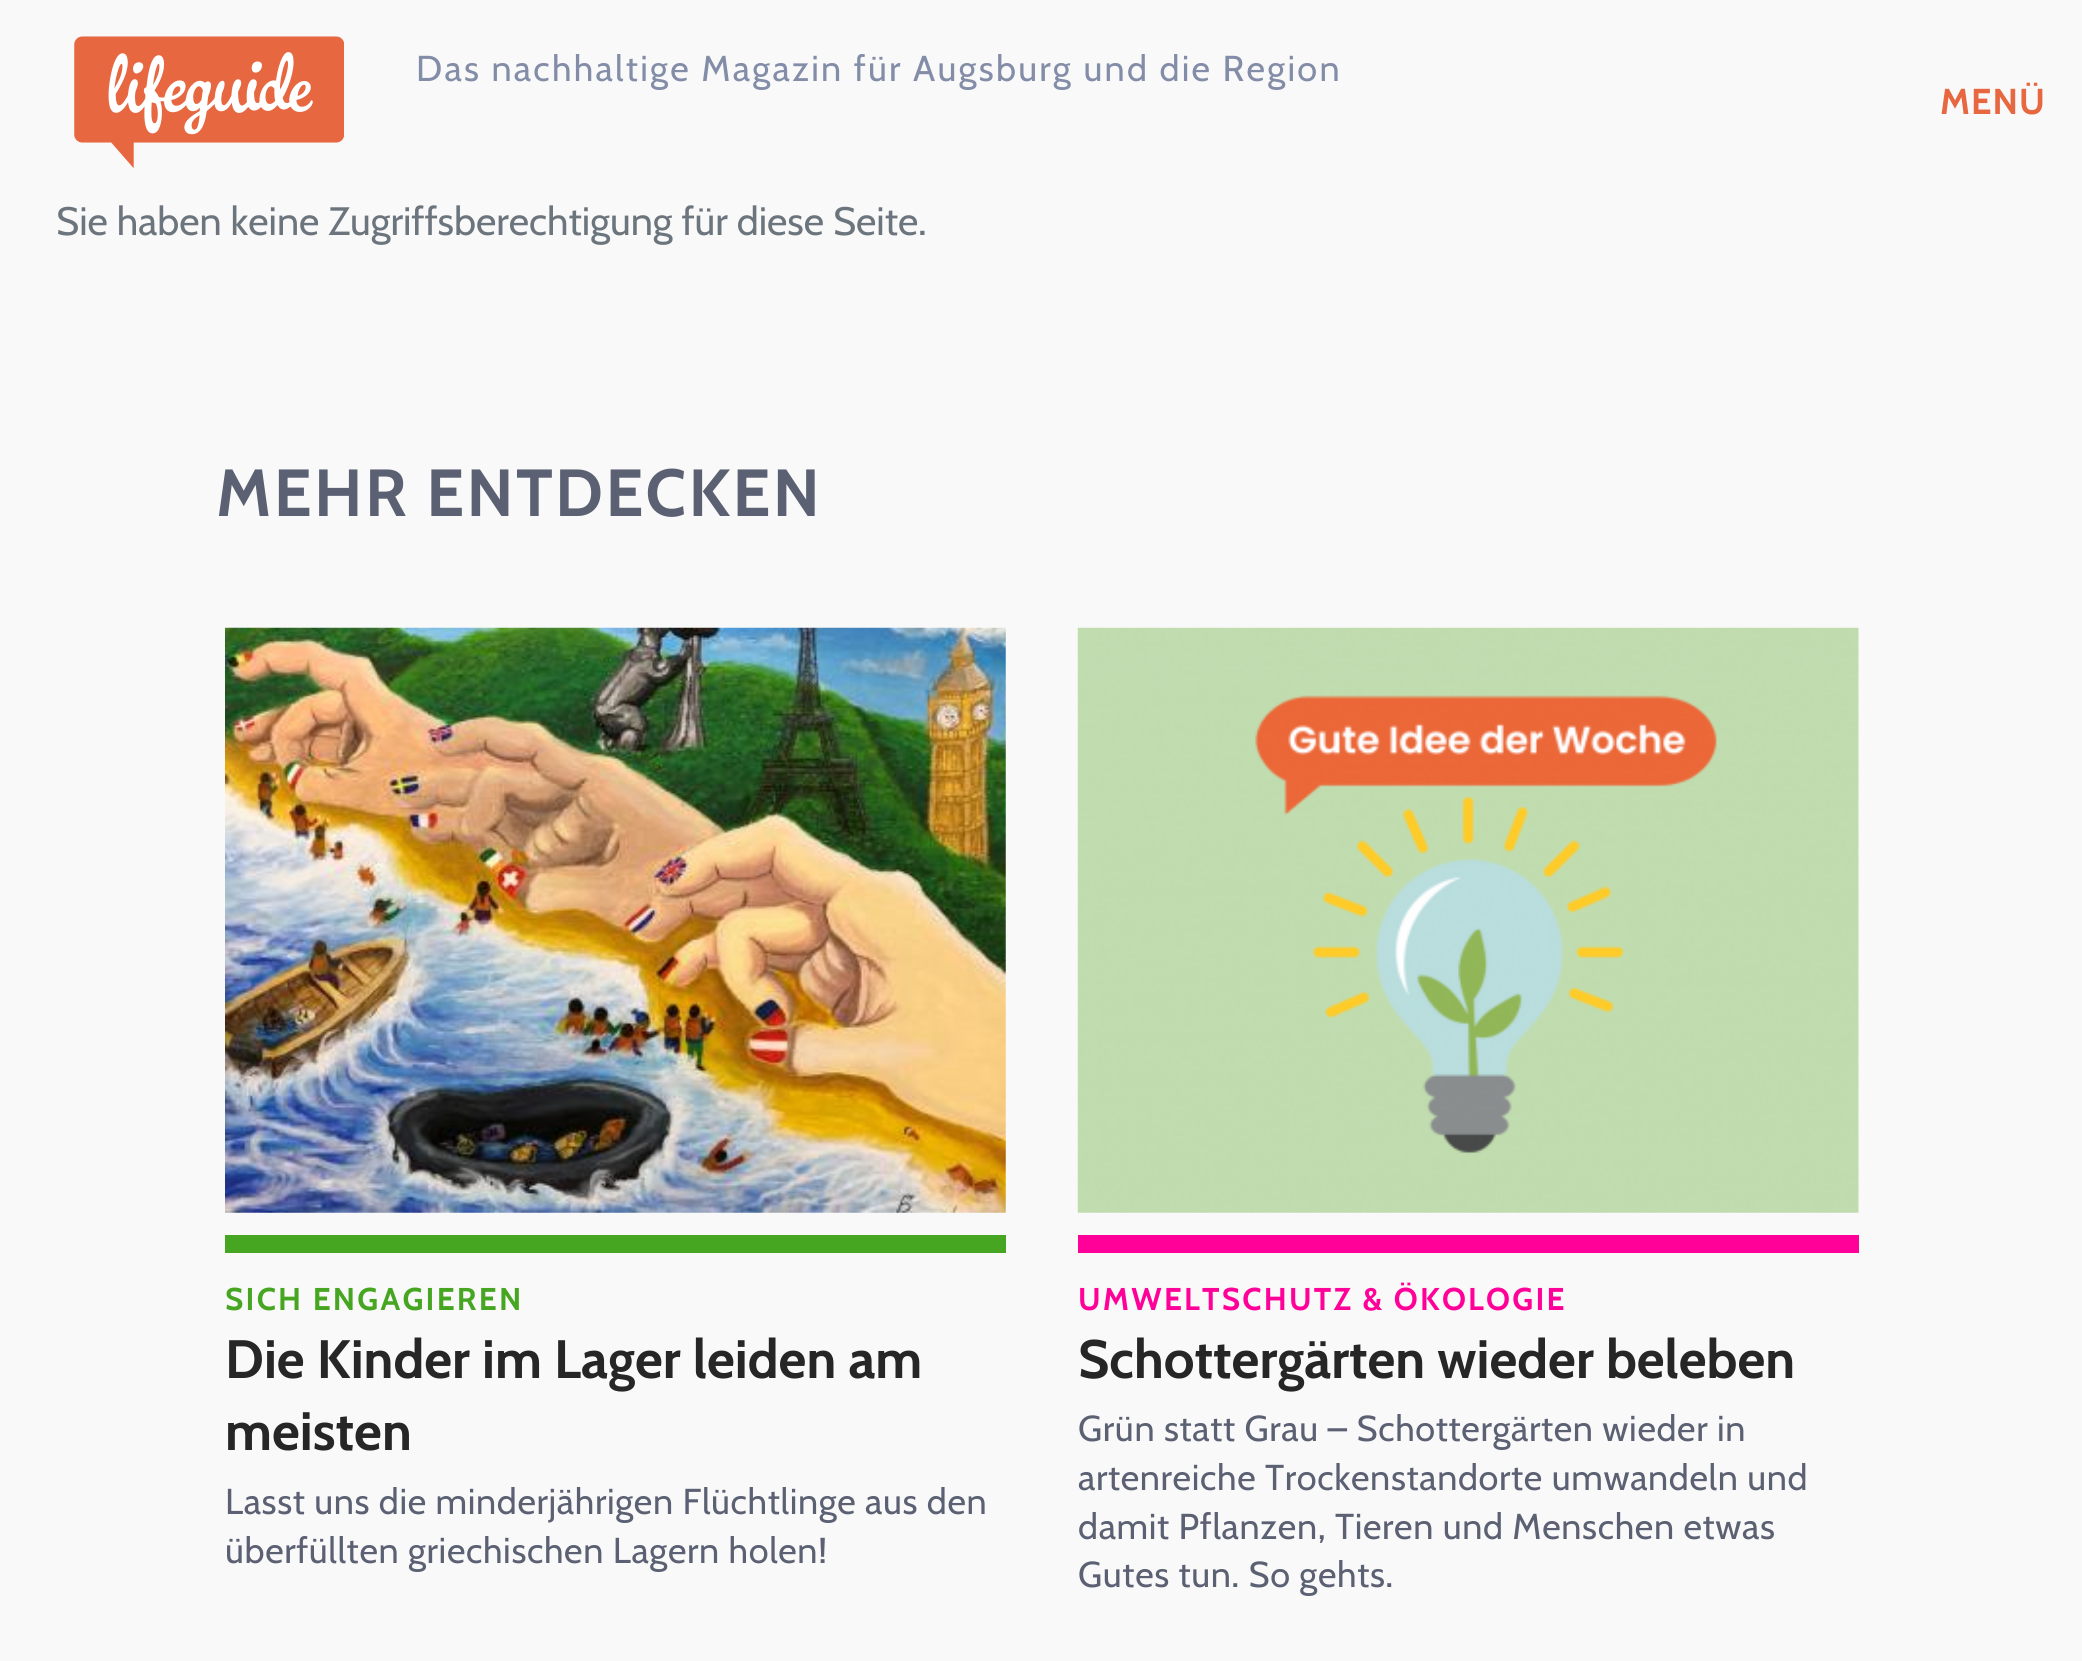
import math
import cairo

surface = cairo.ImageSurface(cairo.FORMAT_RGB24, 2082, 1661)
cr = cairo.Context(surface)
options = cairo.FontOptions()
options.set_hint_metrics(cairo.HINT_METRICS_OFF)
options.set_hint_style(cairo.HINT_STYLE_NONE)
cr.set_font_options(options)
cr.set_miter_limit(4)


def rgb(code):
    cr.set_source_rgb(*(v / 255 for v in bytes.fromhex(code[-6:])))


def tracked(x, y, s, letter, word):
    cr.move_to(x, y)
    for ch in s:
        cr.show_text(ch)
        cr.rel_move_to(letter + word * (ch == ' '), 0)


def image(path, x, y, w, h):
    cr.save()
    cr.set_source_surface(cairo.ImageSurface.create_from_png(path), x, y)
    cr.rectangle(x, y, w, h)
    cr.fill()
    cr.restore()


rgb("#f9f9f9")
cr.paint()
image("img/1.png", 74, 36, 270, 133)
image("img/2.png", 225, 627, 781, 586)
rgb("#47a621")
cr.rectangle(225, 1235, 781, 18)
cr.fill()
image("img/3.png", 1077, 627, 782, 586)
rgb("#ff0099")
cr.rectangle(1078, 1235, 781, 18)
cr.fill()
cr.select_font_face("Cabin")
cr.set_font_size(36)
rgb("#838da8")
tracked(416, 81, "Das nachhaltige Magazin für Augsburg und die Region", 2.25, 0)
cr.select_font_face("Cabin", cairo.FONT_SLANT_NORMAL, cairo.FONT_WEIGHT_BOLD)
rgb("#e66740")
tracked(1940, 114, "MENÜ", 1, 0)
cr.select_font_face("Cabin")
cr.set_font_size(39.6)
rgb("#6c757d")
cr.move_to(56, 235)
cr.show_text("Sie haben keine Zugriffsberechtigung für diese Seite.")
cr.select_font_face("Cabin", cairo.FONT_SLANT_NORMAL, cairo.FONT_WEIGHT_BOLD)
cr.set_font_size(66.5)
rgb("#5b6173")
tracked(216, 516, "MEHR ENTDECKEN", 2.4, 0)
cr.set_font_size(31.5)
rgb("#47a621")
tracked(225, 1310, "SICH ENGAGIEREN", 2.25, 0)
cr.set_font_size(54)
rgb("#262626")
cr.move_to(225, 1378)
cr.show_text("Die Kinder im Lager leiden am")
cr.move_to(225, 1450)
cr.show_text("meisten")
cr.select_font_face("Cabin")
cr.set_font_size(36)
rgb("#5b6173")
tracked(225, 1514, "Lasst uns die minderjährigen Flüchtlinge aus den", 0.65, 0)
tracked(225, 1563, "überfüllten griechischen Lagern holen!", 0.65, 0)
cr.select_font_face("Cabin", cairo.FONT_SLANT_NORMAL, cairo.FONT_WEIGHT_BOLD)
cr.set_font_size(31.5)
rgb("#ff0099")
tracked(1078, 1310, "UMWELTSCHUTZ & ÖKOLOGIE", 2.25, 0)
cr.set_font_size(54)
rgb("#262626")
cr.move_to(1078, 1378)
cr.show_text("Schottergärten wieder beleben")
cr.select_font_face("Cabin")
cr.set_font_size(36)
rgb("#5b6173")
for x, y, s in [
    (1078, 1441, "Grün statt Grau – Schottergärten wieder in"),
    (1078, 1490, "artenreiche Trockenstandorte umwandeln und"),
    (1078, 1539, "damit Pflanzen, Tieren und Menschen etwas"),
    (1078, 1587, "Gutes tun. So gehts."),
]:
    tracked(x, y, s, 0.65, 0)
surface.write_to_png("page.png")
